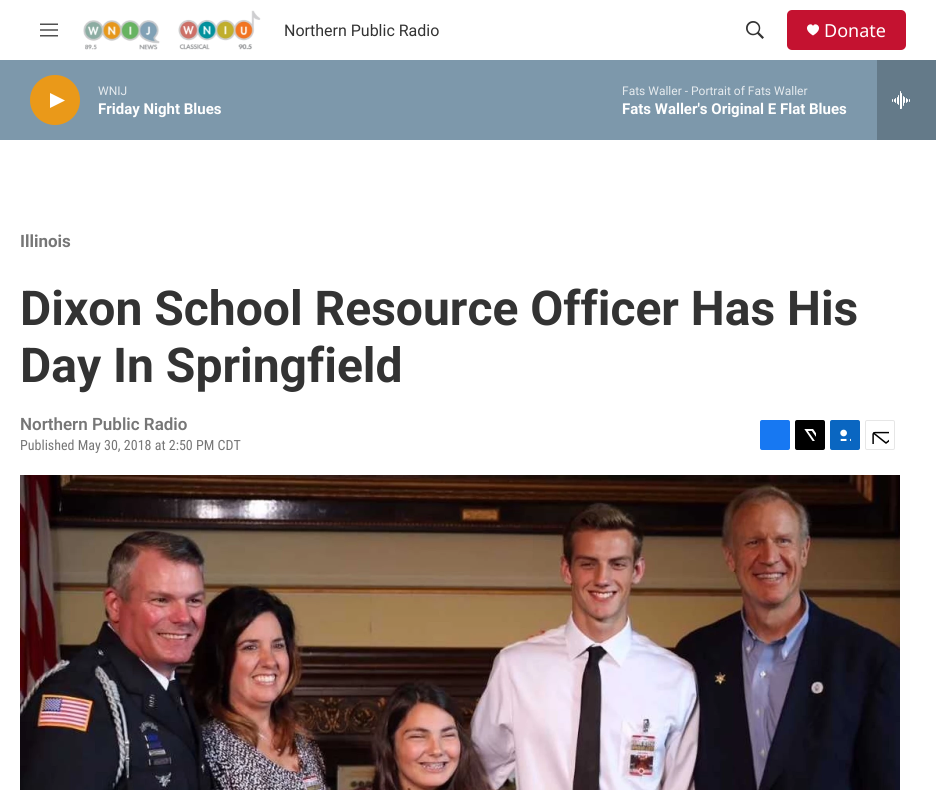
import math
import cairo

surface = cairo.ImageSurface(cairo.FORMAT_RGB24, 936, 790)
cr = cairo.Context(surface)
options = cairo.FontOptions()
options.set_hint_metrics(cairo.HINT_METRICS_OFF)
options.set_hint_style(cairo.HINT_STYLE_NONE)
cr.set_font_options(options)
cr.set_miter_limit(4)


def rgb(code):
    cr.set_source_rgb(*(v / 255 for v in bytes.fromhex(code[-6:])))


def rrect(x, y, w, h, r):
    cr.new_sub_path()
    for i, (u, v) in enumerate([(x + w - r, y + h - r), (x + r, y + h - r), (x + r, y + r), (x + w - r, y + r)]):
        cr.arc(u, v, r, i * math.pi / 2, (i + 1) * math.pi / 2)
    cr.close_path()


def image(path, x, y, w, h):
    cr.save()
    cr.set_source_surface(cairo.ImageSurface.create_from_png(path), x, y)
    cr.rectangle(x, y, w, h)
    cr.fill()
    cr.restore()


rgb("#ffffff")
cr.paint()
image("img/1.png", 40, 23, 18, 14)
image("img/2.png", 83, 10, 178, 40)
image("img/3.png", 746, 21, 18, 18)
rgb("#c41230")
rrect(787, 10, 119, 40, 5)
cr.fill()
rgb("#ffffff")
cr.new_path()
cr.move_to(813, 26)
cr.curve_to(811, 21, 800.5, 28, 813, 35.5)
cr.curve_to(825.5, 28, 815, 21, 813, 26)
cr.close_path()
cr.fill()
rgb("#7d98ab")
cr.rectangle(0, 60, 877, 80)
cr.fill()
rgb("#ea9919")
cr.arc(55, 100, 25, 0, 2 * math.pi)
cr.fill()
rgb("#ffffff")
cr.new_path()
cr.move_to(50, 93)
cr.line_to(65, 100.5)
cr.line_to(50, 108)
cr.close_path()
cr.fill()
rgb("#647a89")
cr.rectangle(877, 60, 59, 80)
cr.fill()
image("img/4.png", 892, 91, 18, 18)
rgb("#1778f2")
rrect(760, 420, 30, 30, 2)
cr.fill()
rgb("#000000")
rrect(795, 420, 30, 30, 2)
cr.fill()
image("img/5.png", 804, 429, 12, 12)
rgb("#0a66c1")
rrect(830, 420, 30, 30, 2)
cr.fill()
image("img/6.png", 840, 429, 11, 12)
rrect(865.5, 420.5, 29, 29, 1.5)
rgb("#e6e6e6")
cr.set_line_width(1)
cr.stroke()
image("img/7.png", 872, 431, 17, 13)
image("img/8.png", 20, 475, 880, 315)
cr.select_font_face("Roboto")
cr.set_font_size(16)
rgb("#333333")
cr.move_to(284, 36)
cr.show_text("Northern Public Radio")
cr.select_font_face("Noto Sans")
cr.set_font_size(18)
rgb("#ffffff")
cr.move_to(824, 37)
cr.show_text("Donate")
cr.select_font_face("Roboto")
cr.set_font_size(12)
rgb("#e5eaee")
cr.move_to(98, 95)
cr.show_text("WNIJ")
cr.select_font_face("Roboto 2", cairo.FONT_SLANT_NORMAL, cairo.FONT_WEIGHT_BOLD)
cr.set_font_size(15)
rgb("#ffffff")
cr.move_to(98, 114)
cr.show_text("Friday Night Blues")
cr.select_font_face("Roboto")
cr.set_font_size(12)
rgb("#e5eaee")
cr.move_to(622, 95)
cr.show_text("Fats Waller - Portrait of Fats Waller")
cr.select_font_face("Roboto 2", cairo.FONT_SLANT_NORMAL, cairo.FONT_WEIGHT_BOLD)
cr.set_font_size(15)
rgb("#ffffff")
cr.move_to(622, 114)
cr.show_text("Fats Waller's Original E Flat Blues")
cr.select_font_face("Roboto", cairo.FONT_SLANT_NORMAL, cairo.FONT_WEIGHT_BOLD)
cr.set_font_size(17)
rgb("#767676")
cr.move_to(20, 247)
cr.show_text("Illinois")
cr.set_font_size(48)
rgb("#333333")
cr.move_to(20, 325)
cr.show_text("Dixon School Resource Officer Has His")
cr.move_to(20, 382)
cr.show_text("Day In Springfield")
cr.select_font_face("Roboto SemiBold")
cr.set_font_size(17)
rgb("#767676")
cr.move_to(20, 430)
cr.show_text("Northern Public Radio")
cr.select_font_face("Roboto Condensed")
cr.set_font_size(14)
cr.move_to(20, 450)
cr.show_text("Published May 30, 2018 at 2:50 PM CDT")
surface.write_to_png("page.png")
